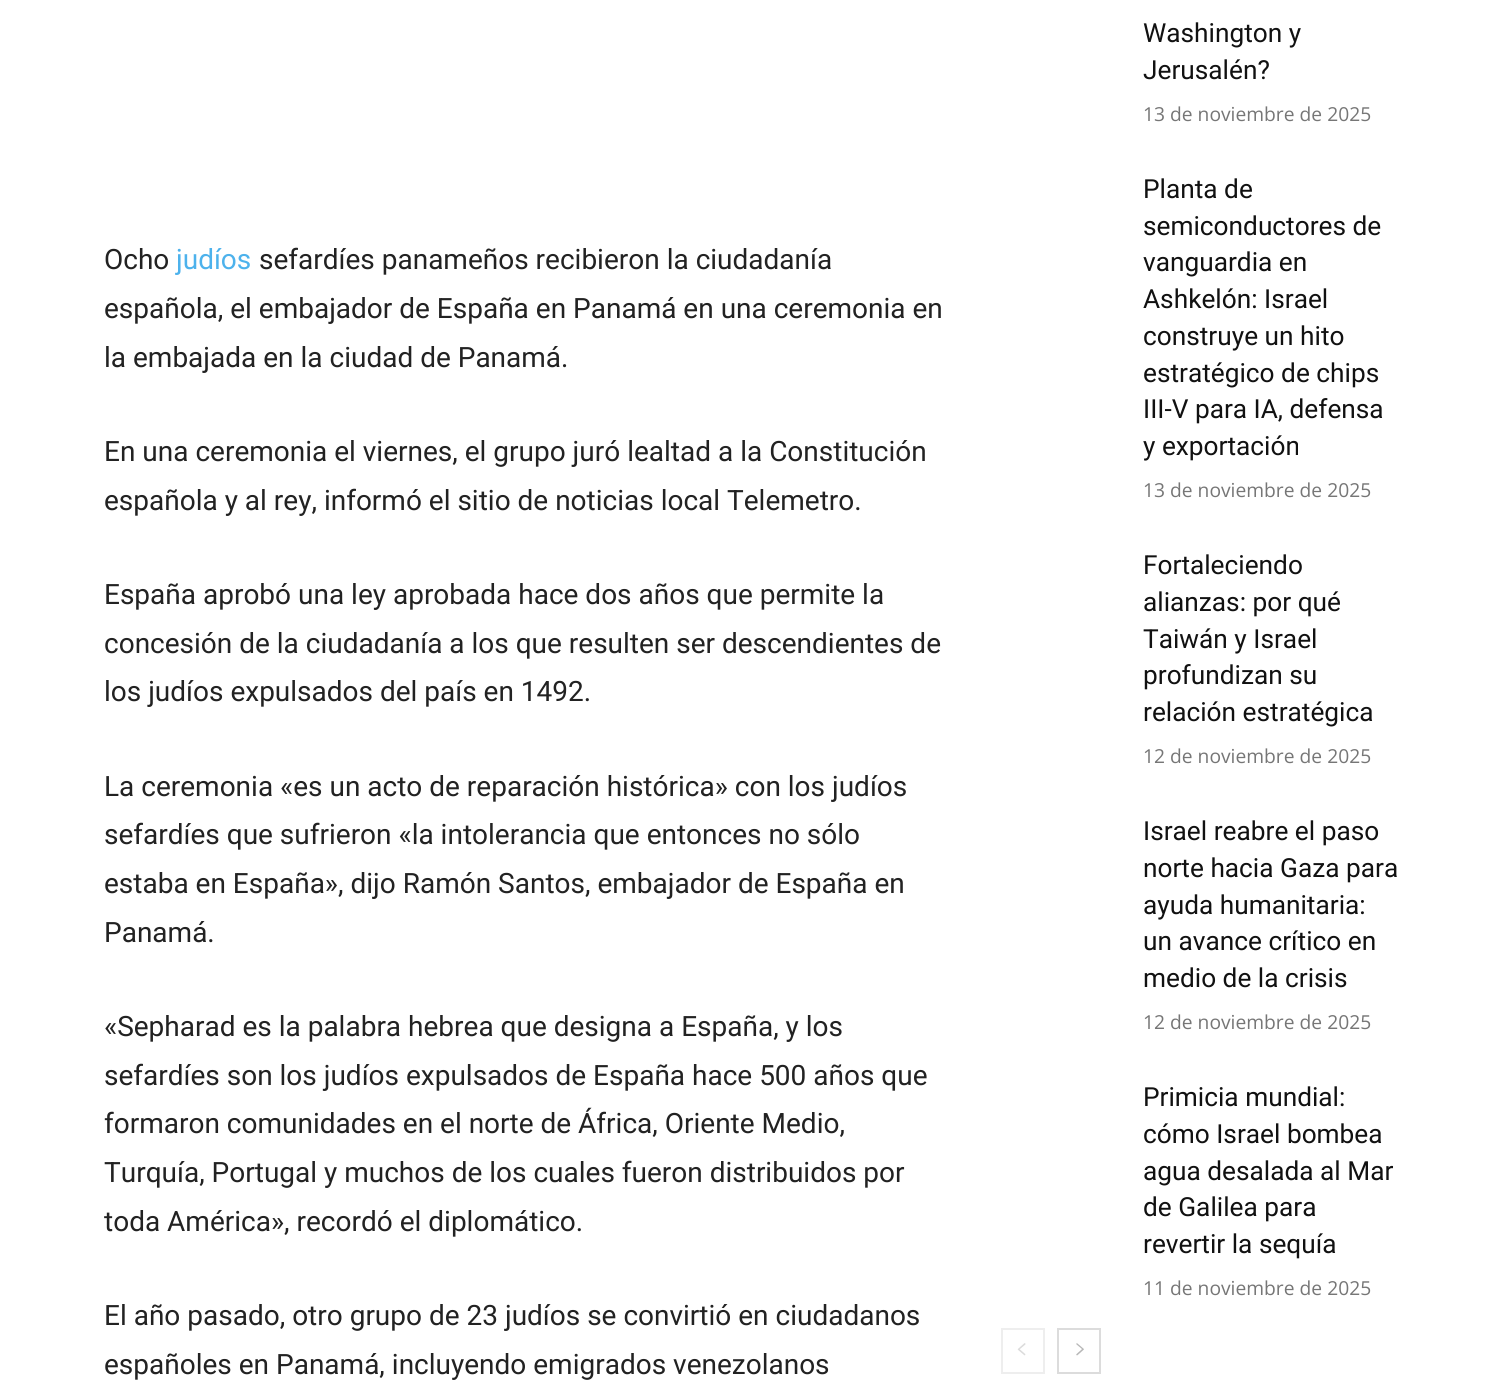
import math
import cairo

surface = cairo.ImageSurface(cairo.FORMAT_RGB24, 1503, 1387)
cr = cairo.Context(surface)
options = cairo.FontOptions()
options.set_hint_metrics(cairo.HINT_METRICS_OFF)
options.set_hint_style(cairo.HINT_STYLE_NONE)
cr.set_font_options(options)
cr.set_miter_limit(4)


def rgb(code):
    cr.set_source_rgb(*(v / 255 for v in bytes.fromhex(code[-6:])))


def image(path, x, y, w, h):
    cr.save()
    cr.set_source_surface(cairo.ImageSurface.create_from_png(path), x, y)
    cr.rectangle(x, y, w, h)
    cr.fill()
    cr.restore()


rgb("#ffffff")
cr.paint()
cr.rectangle(1002, 1329, 42, 44)
rgb("#eeeeee")
cr.stroke()
image("img/1.png", 1017, 1343, 9, 13)
cr.rectangle(1058, 1329, 42, 44)
rgb("#dcdcdc")
cr.stroke()
image("img/2.png", 1076, 1343, 8, 13)
cr.select_font_face("Roboto")
cr.set_font_size(28)
rgb("#222222")
cr.move_to(104, 269)
cr.show_text("Ocho")
rgb("#4db2ec")
cr.move_to(176, 269)
cr.show_text("judíos")
rgb("#222222")
for x, y, s in [
    (259, 269, "sefardíes panameños recibieron la ciudadanía"),
    (104, 318, "española, el embajador de España en Panamá en una ceremonia en"),
    (104, 367, "la embajada en la ciudad de Panamá."),
    (104, 461, "En una ceremonia el viernes, el grupo juró lealtad a la Constitución"),
    (104, 510, "española y al rey, informó el sitio de noticias local Telemetro."),
    (104, 604, "España aprobó una ley aprobada hace dos años que permite la"),
    (104, 653, "concesión de la ciudadanía a los que resulten ser descendientes de"),
    (104, 701, "los judíos expulsados del país en 1492."),
    (104, 796, "La ceremonia «es un acto de reparación histórica» con los judíos"),
    (104, 844, "sefardíes que sufrieron «la intolerancia que entonces no sólo"),
    (104, 893, "estaba en España», dijo Ramón Santos, embajador de España en"),
    (104, 942, "Panamá."),
    (104, 1036, "«Sepharad es la palabra hebrea que designa a España, y los"),
    (104, 1085, "sefardíes son los judíos expulsados de España hace 500 años que"),
    (104, 1133, "formaron comunidades en el norte de África, Oriente Medio,"),
    (104, 1182, "Turquía, Portugal y muchos de los cuales fueron distribuidos por"),
    (104, 1231, "toda América», recordó el diplomático."),
    (104, 1325, "El año pasado, otro grupo de 23 judíos se convirtió en ciudadanos"),
    (104, 1374, "españoles en Panamá, incluyendo emigrados venezolanos"),
]:
    cr.move_to(x, y)
    cr.show_text(s)
cr.set_font_size(26.25)
rgb("#111111")
cr.move_to(1143, 42)
cr.show_text("Washington y")
cr.move_to(1143, 79)
cr.show_text("Jerusalén?")
cr.select_font_face("Open Sans")
cr.set_font_size(19.25)
rgb("#767676")
cr.move_to(1143, 121)
cr.show_text("13 de noviembre de 2025")
cr.select_font_face("Roboto")
cr.set_font_size(26.25)
rgb("#111111")
for x, y, s in [
    (1143, 198, "Planta de"),
    (1143, 235, "semiconductores de"),
    (1143, 271, "vanguardia en"),
    (1143, 308, "Ashkelón: Israel"),
    (1143, 345, "construye un hito"),
    (1143, 382, "estratégico de chips"),
    (1143, 418, "III-V para IA, defensa"),
    (1143, 455, "y exportación"),
]:
    cr.move_to(x, y)
    cr.show_text(s)
cr.select_font_face("Open Sans")
cr.set_font_size(19.25)
rgb("#767676")
cr.move_to(1143, 497)
cr.show_text("13 de noviembre de 2025")
cr.select_font_face("Roboto")
cr.set_font_size(26.25)
rgb("#111111")
for x, y, s in [
    (1143, 574, "Fortaleciendo"),
    (1143, 611, "alianzas: por qué"),
    (1143, 648, "Taiwán y Israel"),
    (1143, 684, "profundizan su"),
    (1143, 721, "relación estratégica"),
]:
    cr.move_to(x, y)
    cr.show_text(s)
cr.select_font_face("Open Sans")
cr.set_font_size(19.25)
rgb("#767676")
cr.move_to(1143, 763)
cr.show_text("12 de noviembre de 2025")
cr.select_font_face("Roboto")
cr.set_font_size(26.25)
rgb("#111111")
for x, y, s in [
    (1143, 840, "Israel reabre el paso"),
    (1143, 877, "norte hacia Gaza para"),
    (1143, 914, "ayuda humanitaria:"),
    (1143, 950, "un avance crítico en"),
    (1143, 987, "medio de la crisis"),
]:
    cr.move_to(x, y)
    cr.show_text(s)
cr.select_font_face("Open Sans")
cr.set_font_size(19.25)
rgb("#767676")
cr.move_to(1143, 1029)
cr.show_text("12 de noviembre de 2025")
cr.select_font_face("Roboto")
cr.set_font_size(26.25)
rgb("#111111")
for x, y, s in [
    (1143, 1106, "Primicia mundial:"),
    (1143, 1143, "cómo Israel bombea"),
    (1143, 1180, "agua desalada al Mar"),
    (1143, 1216, "de Galilea para"),
    (1143, 1253, "revertir la sequía"),
]:
    cr.move_to(x, y)
    cr.show_text(s)
cr.select_font_face("Open Sans")
cr.set_font_size(19.25)
rgb("#767676")
cr.move_to(1143, 1295)
cr.show_text("11 de noviembre de 2025")
surface.write_to_png("page.png")
